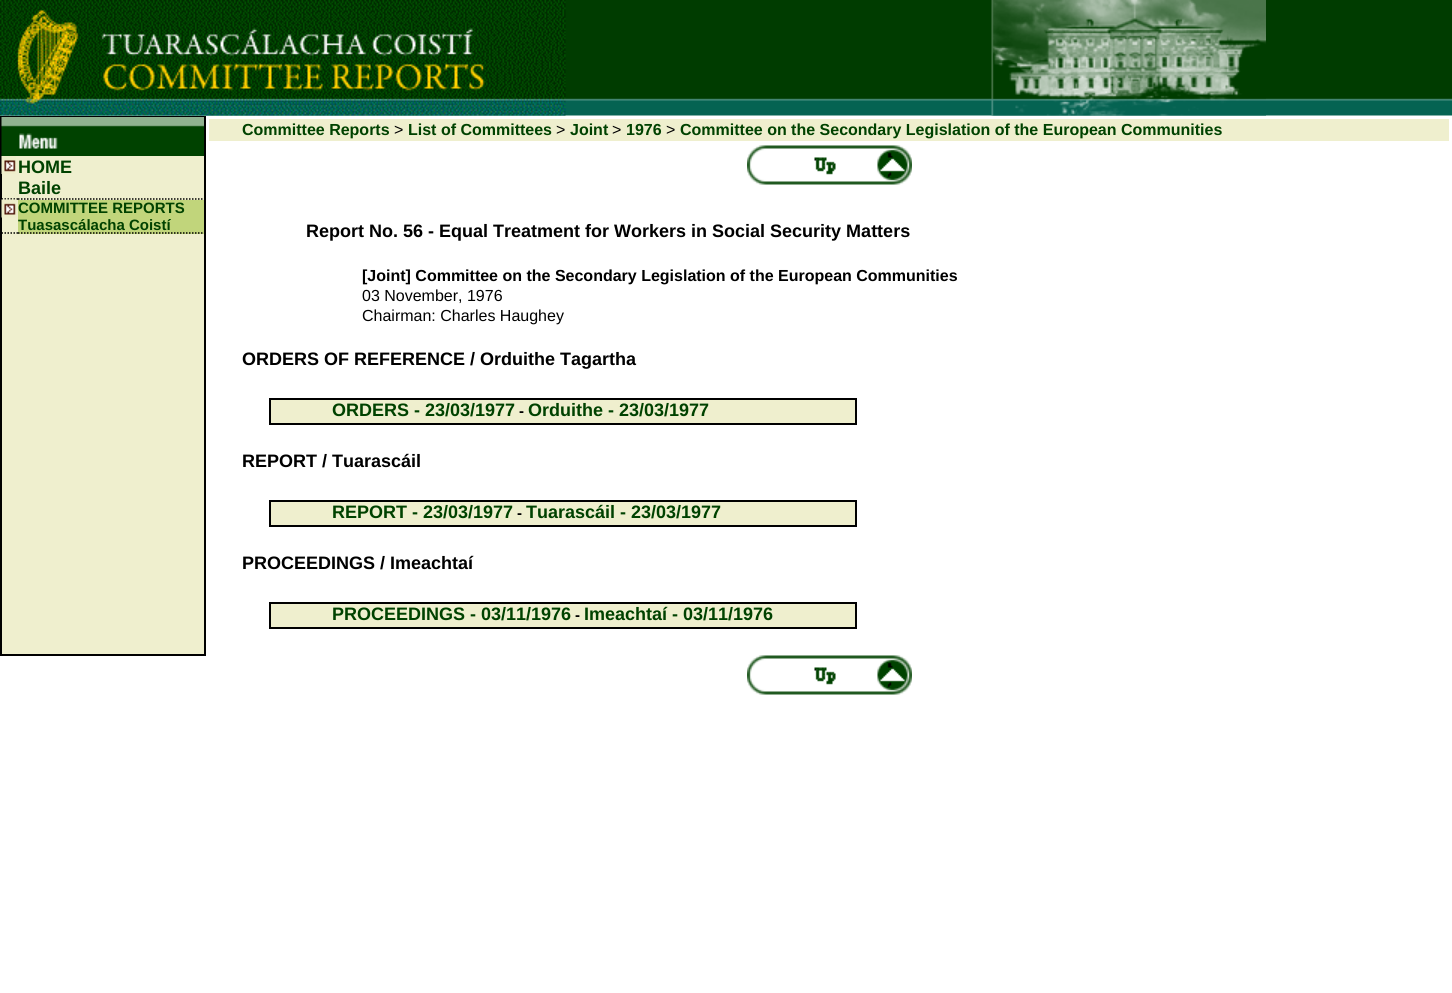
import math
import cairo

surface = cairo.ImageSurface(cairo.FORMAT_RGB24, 1452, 993)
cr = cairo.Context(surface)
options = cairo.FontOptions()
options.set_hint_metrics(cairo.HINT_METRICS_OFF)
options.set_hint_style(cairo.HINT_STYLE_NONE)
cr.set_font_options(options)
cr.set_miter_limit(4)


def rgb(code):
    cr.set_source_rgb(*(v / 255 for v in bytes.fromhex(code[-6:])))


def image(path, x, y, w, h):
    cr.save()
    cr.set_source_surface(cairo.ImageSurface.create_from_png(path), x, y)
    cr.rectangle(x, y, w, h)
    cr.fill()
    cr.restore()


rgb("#ffffff")
cr.paint()
image("img/1.png", 0, 0, 1452, 116)
image("img/2.png", 0, 0, 566, 116)
image("img/3.png", 991, 0, 275, 116)
rgb("#efefce")
cr.rectangle(2, 156, 202, 498)
cr.fill()
cr.rectangle(1, 117, 204, 538)
rgb("#000000")
cr.stroke()
image("img/4.png", 1, 117, 203, 39)
cr.new_path()
cr.move_to(1.5, 199)
cr.line_to(18, 199)
cr.set_line_width(1.5)
cr.set_dash([1.5, 1.5])
cr.stroke()
image("img/5.png", 1, 156, 15, 18)
cr.new_path()
cr.move_to(18, 199)
cr.line_to(204, 199)
cr.stroke()
cr.new_path()
cr.move_to(1.5, 233)
cr.line_to(18, 233)
cr.stroke()
image("img/6.png", 1, 199, 16, 19)
rgb("#c1d57b")
cr.rectangle(18, 200, 186, 34)
cr.fill()
cr.new_path()
cr.move_to(18, 233)
cr.line_to(204, 233)
rgb("#000000")
cr.stroke()
rgb("#efefce")
cr.rectangle(209, 119, 1240, 22)
cr.fill()
image("img/7.png", 747, 145, 165, 40)
cr.rectangle(270, 399, 586, 25)
cr.fill_preserve()
rgb("#000000")
cr.set_line_width(2)
cr.set_dash([])
cr.stroke()
rgb("#efefce")
cr.rectangle(270, 501, 586, 25)
cr.fill_preserve()
rgb("#000000")
cr.stroke()
rgb("#efefce")
cr.rectangle(270, 603, 586, 25)
cr.fill_preserve()
rgb("#000000")
cr.stroke()
image("img/7.png", 747, 655, 165, 40)
cr.select_font_face("Liberation Sans", cairo.FONT_SLANT_NORMAL, cairo.FONT_WEIGHT_BOLD)
cr.set_font_size(18)
rgb("#004200")
cr.move_to(18, 173)
cr.show_text("HOME")
cr.move_to(18, 194)
cr.show_text("Baile")
cr.set_font_size(15)
cr.move_to(18, 213)
cr.show_text("COMMITTEE REPORTS")
cr.move_to(18, 230)
cr.show_text("Tuasascálacha Coistí")
cr.set_font_size(16)
cr.move_to(242, 135)
cr.show_text("Committee Reports")
cr.select_font_face("Liberation Sans")
rgb("#000000")
cr.move_to(394, 135)
cr.show_text(">")
cr.select_font_face("Liberation Sans", cairo.FONT_SLANT_NORMAL, cairo.FONT_WEIGHT_BOLD)
rgb("#004200")
cr.move_to(408, 135)
cr.show_text("List of Committees")
cr.select_font_face("Liberation Sans")
rgb("#000000")
cr.move_to(556, 135)
cr.show_text(">")
cr.select_font_face("Liberation Sans", cairo.FONT_SLANT_NORMAL, cairo.FONT_WEIGHT_BOLD)
rgb("#004200")
cr.move_to(570, 135)
cr.show_text("Joint")
cr.select_font_face("Liberation Sans")
rgb("#000000")
cr.move_to(612, 135)
cr.show_text(">")
cr.select_font_face("Liberation Sans", cairo.FONT_SLANT_NORMAL, cairo.FONT_WEIGHT_BOLD)
rgb("#004200")
cr.move_to(626, 135)
cr.show_text("1976")
cr.select_font_face("Liberation Sans")
rgb("#000000")
cr.move_to(666, 135)
cr.show_text(">")
cr.select_font_face("Liberation Sans", cairo.FONT_SLANT_NORMAL, cairo.FONT_WEIGHT_BOLD)
rgb("#004200")
cr.move_to(680, 135)
cr.show_text("Committee on the Secondary Legislation of the European Communities")
cr.set_font_size(18)
rgb("#000000")
cr.move_to(306, 237)
cr.show_text("Report No. 56 - Equal Treatment for Workers in Social Security Matters")
cr.set_font_size(16)
cr.move_to(362, 281)
cr.show_text("[Joint] Committee on the Secondary Legislation of the European Communities")
cr.select_font_face("Liberation Sans")
cr.move_to(362, 301)
cr.show_text("03 November, 1976")
cr.move_to(362, 321)
cr.show_text("Chairman: Charles Haughey")
cr.select_font_face("Liberation Sans", cairo.FONT_SLANT_NORMAL, cairo.FONT_WEIGHT_BOLD)
cr.set_font_size(18)
cr.move_to(242, 365)
cr.show_text("ORDERS OF REFERENCE / Orduithe Tagartha")
rgb("#004200")
cr.move_to(332, 416)
cr.show_text("ORDERS - 23/03/1977")
cr.set_font_size(15)
rgb("#000000")
cr.move_to(519, 416)
cr.show_text("-")
cr.set_font_size(18)
rgb("#004200")
cr.move_to(528, 416)
cr.show_text("Orduithe - 23/03/1977")
rgb("#000000")
cr.move_to(242, 467)
cr.show_text("REPORT / Tuarascáil")
rgb("#004200")
cr.move_to(332, 518)
cr.show_text("REPORT - 23/03/1977")
cr.set_font_size(15)
rgb("#000000")
cr.move_to(517, 518)
cr.show_text("-")
cr.set_font_size(18)
rgb("#004200")
cr.move_to(526, 518)
cr.show_text("Tuarascáil - 23/03/1977")
rgb("#000000")
cr.move_to(242, 569)
cr.show_text("PROCEEDINGS / Imeachtaí")
rgb("#004200")
cr.move_to(332, 620)
cr.show_text("PROCEEDINGS - 03/11/1976")
cr.set_font_size(15)
rgb("#000000")
cr.move_to(575, 620)
cr.show_text("-")
cr.set_font_size(18)
rgb("#004200")
cr.move_to(584, 620)
cr.show_text("Imeachtaí - 03/11/1976")
surface.write_to_png("page.png")
